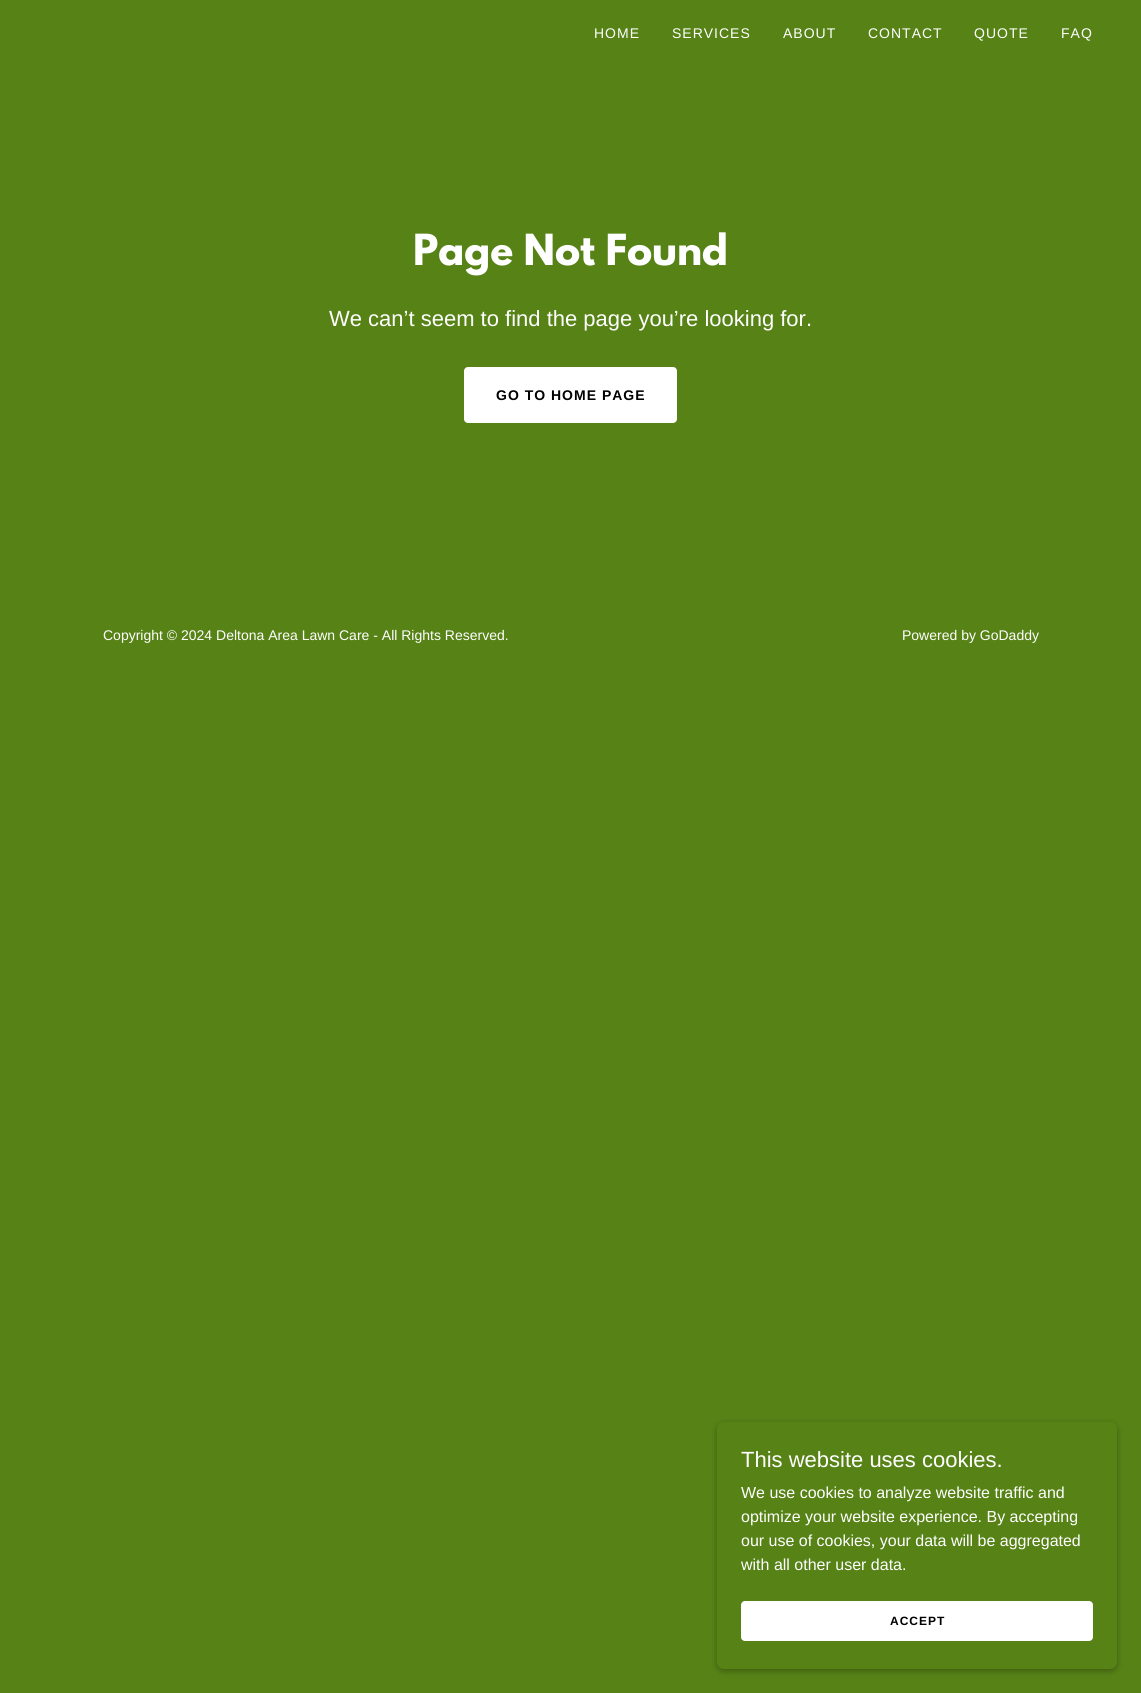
import math
import cairo

surface = cairo.ImageSurface(cairo.FORMAT_RGB24, 1141, 1693)
cr = cairo.Context(surface)
options = cairo.FontOptions()
options.set_hint_metrics(cairo.HINT_METRICS_OFF)
options.set_hint_style(cairo.HINT_STYLE_NONE)
cr.set_font_options(options)
cr.set_miter_limit(4)


def rgb(code):
    cr.set_source_rgb(*(v / 255 for v in bytes.fromhex(code[-6:])))


def tracked(x, y, s, letter, word):
    cr.move_to(x, y)
    for ch in s:
        cr.show_text(ch)
        cr.rel_move_to(letter + word * (ch == ' '), 0)


def rrect(x, y, w, h, r):
    cr.new_sub_path()
    for i, (u, v) in enumerate([(x + w - r, y + h - r), (x + r, y + h - r), (x + r, y + r), (x + w - r, y + r)]):
        cr.arc(u, v, r, i * math.pi / 2, (i + 1) * math.pi / 2)
    cr.close_path()


def soft_shadow(x, y, w, h, r, blur, alpha):
    cr.push_group_with_content(cairo.CONTENT_ALPHA)
    cr.set_operator(cairo.OPERATOR_SOURCE)
    for i in range(15, -16, -2):
        e = blur * i / 6
        if min(w, h) + 2 * e > 0:
            cr.set_source_rgba(0, 0, 0, alpha * math.erfc((i - 1) / 8.5) / 2)
            rrect(x - e, y - e, w + 2 * e, h + 2 * e, max(0, min(r + e + blur * .6, min(w, h) / 2 + e)))
            cr.fill()
    cr.mask(cr.pop_group())


rgb("#568216")
cr.paint()
rgb("#ffffff")
rrect(464, 367, 213, 56, 4)
cr.fill()
rgb("#000000")
soft_shadow(717, 1424, 400, 247, 7, 3, 0.3)
rgb("#568216")
rrect(717, 1422, 400, 247, 7)
cr.fill()
rgb("#ffffff")
rrect(741, 1601, 352, 40, 4)
cr.fill()
cr.select_font_face("Liberation Sans")
cr.set_font_size(14)
for x, y, s in [
    (594, 38, "HOME"),
    (672, 38, "SERVICES"),
    (783, 38, "ABOUT"),
    (868, 38, "CONTACT"),
    (974, 38, "QUOTE"),
    (1061, 38, "FAQ"),
]:
    tracked(x, y, s, 1, 0)
cr.select_font_face("League Spartan", cairo.FONT_SLANT_NORMAL, cairo.FONT_WEIGHT_BOLD)
cr.set_font_size(38)
cr.move_to(413, 265)
cr.show_text("Page Not Found")
cr.select_font_face("Liberation Sans")
cr.set_font_size(22)
cr.move_to(329, 326)
cr.show_text("We can’t seem to find the page you’re looking for.")
cr.select_font_face("Liberation Sans", cairo.FONT_SLANT_NORMAL, cairo.FONT_WEIGHT_BOLD)
cr.set_font_size(14)
rgb("#000000")
tracked(496, 400, "GO TO HOME PAGE", 1, 0)
cr.select_font_face("Liberation Sans")
rgb("#ffffff")
cr.move_to(103, 640)
cr.show_text("Copyright © 2024 Deltona Area Lawn Care - All Rights Reserved.")
cr.move_to(902, 640)
cr.show_text("Powered by GoDaddy")
cr.set_font_size(22)
cr.move_to(741, 1467)
cr.show_text("This website uses cookies.")
cr.set_font_size(16)
for x, y, s in [
    (741, 1498, "We use cookies to analyze website traffic and"),
    (741, 1522, "optimize your website experience. By accepting"),
    (741, 1546, "our use of cookies, your data will be aggregated"),
    (741, 1570, "with all other user data."),
]:
    cr.move_to(x, y)
    cr.show_text(s)
cr.select_font_face("Liberation Sans", cairo.FONT_SLANT_NORMAL, cairo.FONT_WEIGHT_BOLD)
cr.set_font_size(12)
rgb("#000000")
tracked(890, 1625, "ACCEPT", 1, 0)
surface.write_to_png("page.png")
